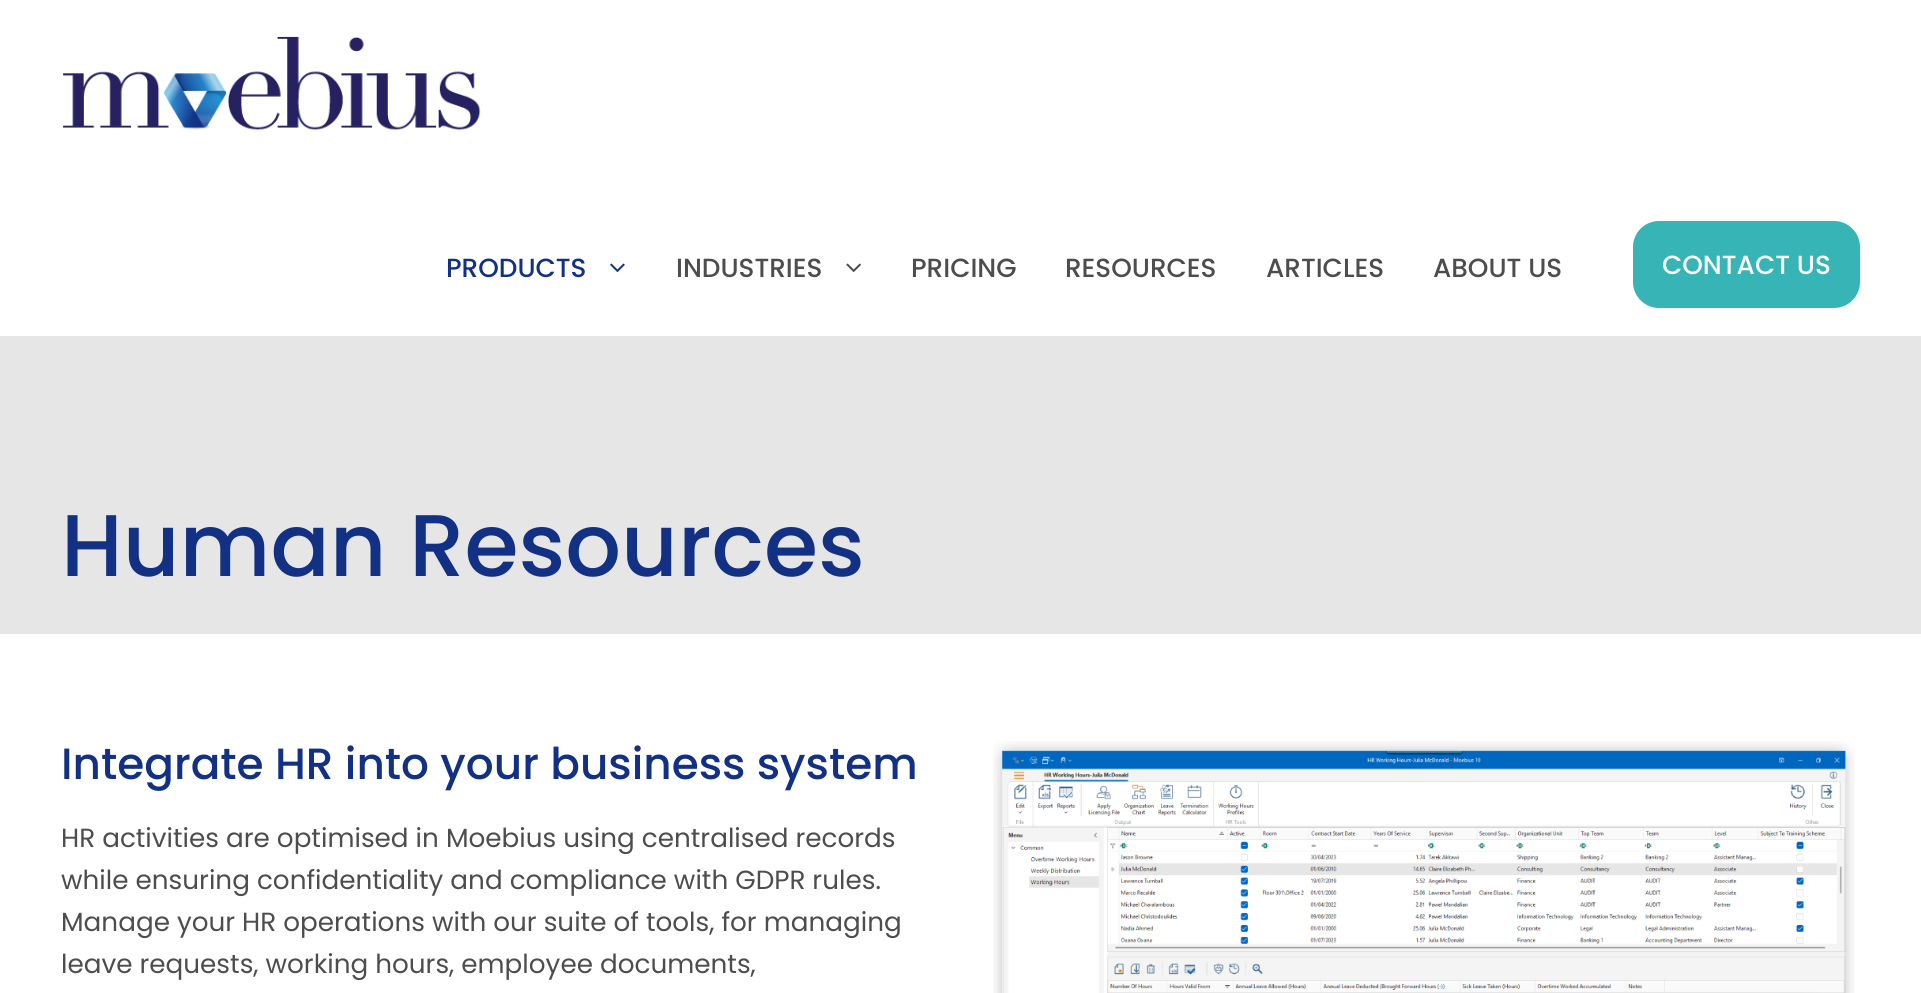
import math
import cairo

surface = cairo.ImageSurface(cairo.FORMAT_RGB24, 1921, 993)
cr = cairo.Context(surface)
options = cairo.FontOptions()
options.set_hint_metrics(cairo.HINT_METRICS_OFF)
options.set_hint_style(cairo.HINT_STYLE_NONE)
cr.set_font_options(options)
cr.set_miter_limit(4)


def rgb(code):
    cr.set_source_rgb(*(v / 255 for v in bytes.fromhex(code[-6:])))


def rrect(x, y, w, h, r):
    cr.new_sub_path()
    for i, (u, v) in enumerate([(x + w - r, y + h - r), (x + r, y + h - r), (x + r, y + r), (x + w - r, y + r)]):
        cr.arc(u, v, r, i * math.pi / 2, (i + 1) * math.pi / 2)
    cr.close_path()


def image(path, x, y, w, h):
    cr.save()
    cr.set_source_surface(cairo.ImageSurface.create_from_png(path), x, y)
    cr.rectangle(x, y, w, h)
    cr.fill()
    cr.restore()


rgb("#ffffff")
cr.paint()
image("img/1.png", 63, 36, 418, 94)
image("img/2.png", 610, 263, 15, 9)
image("img/3.png", 846, 263, 15, 9)
rgb("#37b5b6")
rrect(1635, 223, 223, 83, 24)
cr.fill_preserve()
cr.set_line_width(4)
cr.stroke()
rgb("#e6e6e6")
cr.rectangle(0, 336, 1921, 298)
cr.fill()
image("img/4.png", 993, 741, 862, 252)
cr.select_font_face("Poppins Medium")
cr.set_font_size(26.25)
rgb("#123084")
cr.move_to(446, 277)
cr.show_text("PRODUCTS")
rgb("#4d4d4d")
for x, y, s in [
    (676, 277, "INDUSTRIES"),
    (911, 277, "PRICING"),
    (1065, 277, "RESOURCES"),
    (1266, 277, "ARTICLES"),
    (1433, 277, "ABOUT US"),
]:
    cr.move_to(x, y)
    cr.show_text(s)
rgb("#ffffff")
cr.move_to(1662, 274)
cr.show_text("CONTACT US")
cr.set_font_size(87.5)
rgb("#123084")
cr.move_to(61, 576)
cr.show_text("Human Resources")
cr.set_font_size(43.75)
cr.move_to(61, 779)
cr.show_text("Integrate HR into your business system")
cr.select_font_face("Poppins")
cr.set_font_size(26.25)
rgb("#4d4d4d")
for x, y, s in [
    (61, 847, "HR activities are optimised in Moebius using centralised records"),
    (61, 889, "while ensuring confidentiality and compliance with GDPR rules."),
    (61, 931, "Manage your HR operations with our suite of tools, for managing"),
    (61, 973, "leave requests, working hours, employee documents,"),
]:
    cr.move_to(x, y)
    cr.show_text(s)
surface.write_to_png("page.png")
